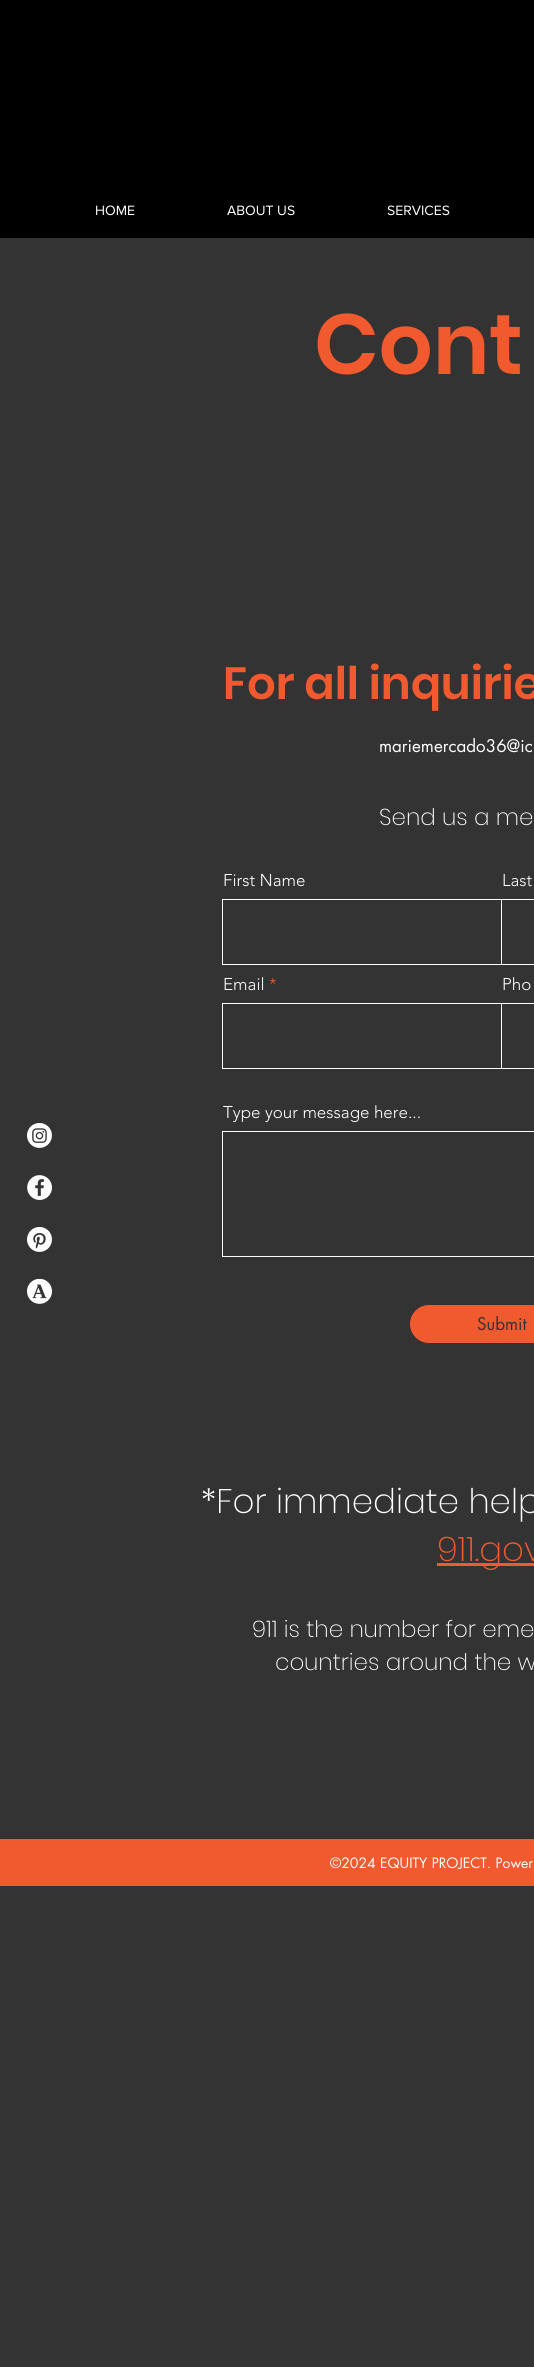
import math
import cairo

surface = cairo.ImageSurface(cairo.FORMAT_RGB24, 534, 2367)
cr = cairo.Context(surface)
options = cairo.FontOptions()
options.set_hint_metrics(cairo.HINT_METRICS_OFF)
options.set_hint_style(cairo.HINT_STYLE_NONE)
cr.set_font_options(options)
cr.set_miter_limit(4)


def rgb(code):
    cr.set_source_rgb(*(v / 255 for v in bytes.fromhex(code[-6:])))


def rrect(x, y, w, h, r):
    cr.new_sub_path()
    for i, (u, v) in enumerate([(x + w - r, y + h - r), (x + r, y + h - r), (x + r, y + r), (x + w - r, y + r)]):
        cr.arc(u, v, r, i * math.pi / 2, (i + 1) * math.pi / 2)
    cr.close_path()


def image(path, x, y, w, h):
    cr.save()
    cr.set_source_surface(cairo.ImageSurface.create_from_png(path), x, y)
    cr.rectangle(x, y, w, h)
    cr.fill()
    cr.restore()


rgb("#333333")
cr.paint()
rgb("#000000")
cr.rectangle(0, 0, 534, 238)
cr.fill()
image("img/1.png", 27, 1123, 25, 25)
image("img/2.png", 27, 1175, 25, 25)
image("img/3.png", 27, 1227, 25, 25)
image("img/4.png", 27, 1279, 25, 25)
cr.rectangle(222.5, 899.5, 279, 65)
rgb("#ffffff")
cr.set_line_width(1)
cr.stroke()
cr.rectangle(501.5, 899.5, 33, 65)
cr.stroke()
cr.rectangle(222.5, 1003.5, 279, 65)
cr.stroke()
cr.rectangle(501.5, 1003.5, 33, 65)
cr.stroke()
cr.rectangle(222.5, 1131.5, 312, 125)
cr.stroke()
rgb("#f15a2e")
rrect(409.5, 1304.5, 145, 39, 19.5)
cr.fill_preserve()
rgb("#333333")
cr.stroke()
rgb("#f15a2e")
cr.rectangle(437, 1563, 97, 3)
cr.fill()
cr.rectangle(0, 1839, 534, 47)
cr.fill()
cr.select_font_face("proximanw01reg")
cr.set_font_size(14)
rgb("#ffffff")
for x, y, s in [
    (95, 215, "HOME"),
    (227, 215, "ABOUT US"),
    (387, 215, "SERVICES"),
]:
    cr.move_to(x, y)
    cr.show_text(s)
cr.select_font_face("Poppins SemiBold")
cr.set_font_size(85)
rgb("#f15a2e")
cr.move_to(314, 374)
cr.show_text("Cont")
cr.set_font_size(45)
cr.move_to(223, 699)
cr.show_text("For all inquirie")
cr.select_font_face("futura")
cr.set_font_size(17)
rgb("#ffffff")
cr.move_to(379, 752)
cr.show_text("mariemercado36@ic")
cr.select_font_face("Poppins ExtraLight")
cr.set_font_size(23)
cr.move_to(379, 825)
cr.show_text("Send us a me")
cr.select_font_face("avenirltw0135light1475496 Light")
cr.set_font_size(17)
for x, y, s in [
    (223, 886, "First Name"),
    (502, 886, "Last"),
    (223, 990, "Email"),
]:
    cr.move_to(x, y)
    cr.show_text(s)
rgb("#f15a2e")
cr.move_to(269, 990)
cr.show_text("*")
rgb("#ffffff")
cr.move_to(502, 990)
cr.show_text("Pho")
cr.move_to(223, 1118)
cr.show_text("Type your message here...")
cr.select_font_face("futura")
rgb("#333333")
cr.move_to(477, 1330)
cr.show_text("Submit")
cr.select_font_face("Poppins ExtraLight")
cr.set_font_size(34)
rgb("#ffffff")
cr.move_to(201, 1513)
cr.show_text("*For immediate help")
rgb("#f15a2e")
cr.move_to(437, 1561)
cr.show_text("911.gov")
cr.set_font_size(23)
rgb("#ffffff")
cr.move_to(252, 1637)
cr.show_text("911 is the number for eme")
cr.move_to(275, 1670)
cr.show_text("countries around the w")
cr.select_font_face("futura")
cr.set_font_size(14)
cr.move_to(330, 1868)
cr.show_text("©2024 EQUITY PROJECT. Power")
surface.write_to_png("page.png")
